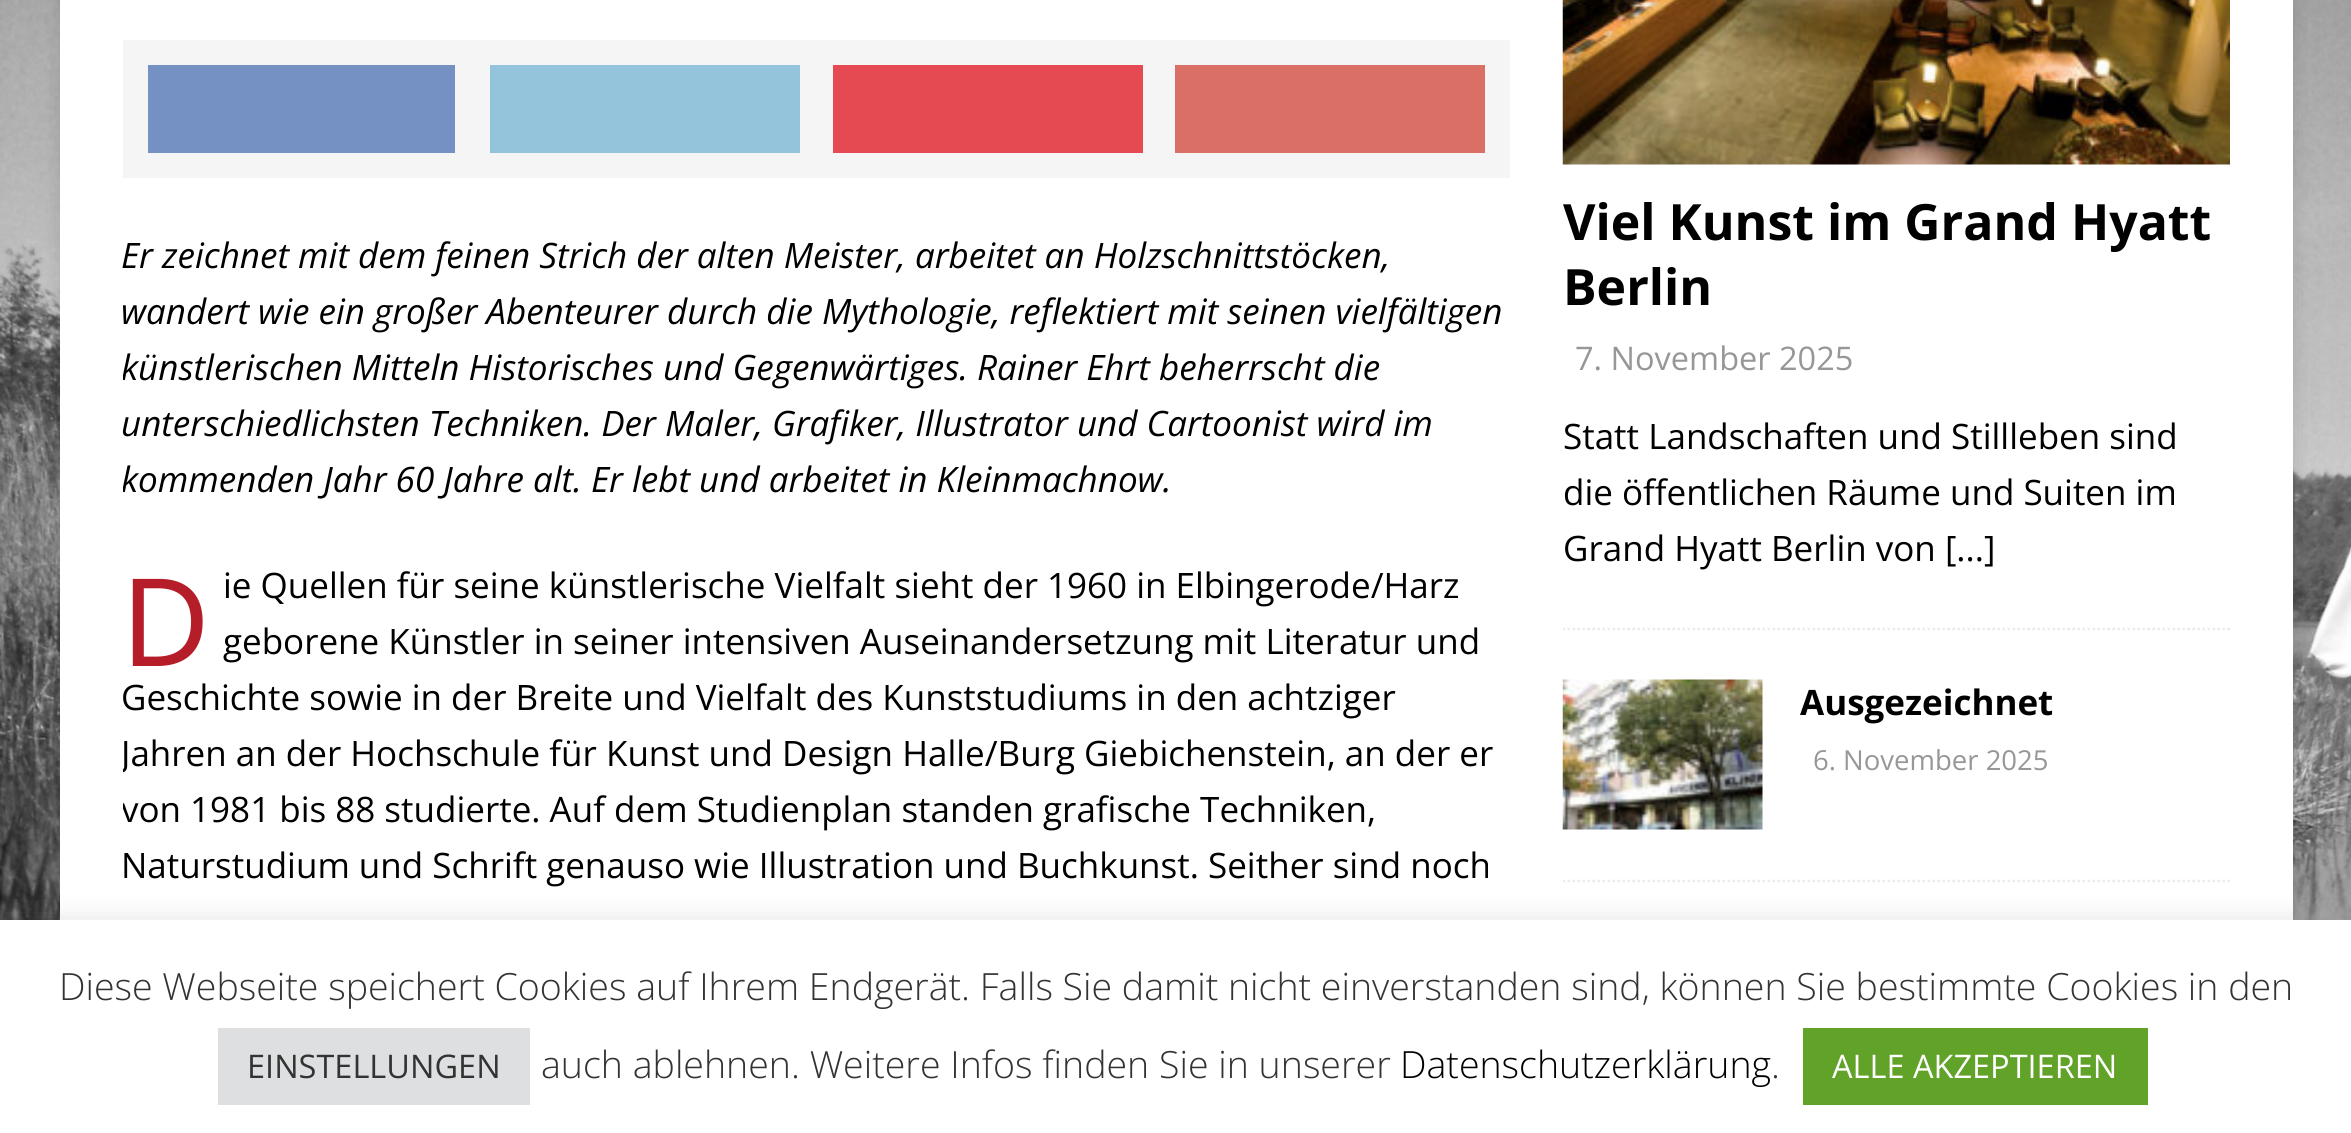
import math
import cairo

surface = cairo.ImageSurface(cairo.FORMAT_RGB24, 2351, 1133)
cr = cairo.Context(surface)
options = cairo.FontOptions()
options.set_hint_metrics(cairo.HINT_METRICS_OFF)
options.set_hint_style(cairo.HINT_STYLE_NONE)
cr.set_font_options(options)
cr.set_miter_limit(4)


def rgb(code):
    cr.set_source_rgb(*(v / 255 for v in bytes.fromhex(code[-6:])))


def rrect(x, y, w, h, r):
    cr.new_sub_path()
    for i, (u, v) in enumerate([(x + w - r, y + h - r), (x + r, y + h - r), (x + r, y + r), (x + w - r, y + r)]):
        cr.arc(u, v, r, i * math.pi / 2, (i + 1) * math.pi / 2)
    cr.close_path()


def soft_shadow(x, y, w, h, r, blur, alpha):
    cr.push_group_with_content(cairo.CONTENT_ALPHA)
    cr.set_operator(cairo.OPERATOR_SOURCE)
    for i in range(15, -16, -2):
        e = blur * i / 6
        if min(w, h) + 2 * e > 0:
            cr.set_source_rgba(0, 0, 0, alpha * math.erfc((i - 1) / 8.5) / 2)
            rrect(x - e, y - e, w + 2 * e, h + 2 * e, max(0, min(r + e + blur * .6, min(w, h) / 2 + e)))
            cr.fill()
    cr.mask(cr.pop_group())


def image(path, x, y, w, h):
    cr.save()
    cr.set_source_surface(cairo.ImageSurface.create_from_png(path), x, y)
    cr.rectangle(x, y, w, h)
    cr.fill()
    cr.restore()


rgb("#ffffff")
cr.paint()
image("img/1.png", 0, 0, 2351, 920)
rgb("#323232")
soft_shadow(60, -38, 2233, 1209, 0, 12.5, 0.17)
for x, y, w, h, color in [
    (60, 0, 2233, 920, "#ffffff"),
    (123, 40, 1387, 138, "#f5f5f5"),
    (148, 65, 307, 88, "#7590c3"),
    (490, 65, 310, 88, "#94c3dc"),
    (833, 65, 310, 88, "#e54a53"),
    (1175, 65, 310, 88, "#d96f65"),
]:
    rgb(color)
    cr.rectangle(x, y, w, h)
    cr.fill()
cr.save()
cr.rectangle(1563, 0, 667, 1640)
cr.clip()
cr.new_path()
cr.move_to(1562.5, 629)
cr.line_to(2230, 629)
rgb("#ebebeb")
cr.set_line_width(2.5)
cr.set_dash([2.5, 2.5])
cr.stroke()
cr.restore()
image("img/2.png", 1562, 0, 668, 165)
cr.save()
cr.rectangle(1563, 0, 667, 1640)
cr.clip()
cr.new_path()
cr.move_to(1562.5, 881)
cr.line_to(2230, 881)
rgb("#ebebeb")
cr.set_line_width(2.5)
cr.set_dash([2.5, 2.5])
cr.stroke()
cr.restore()
image("img/3.png", 1562, 679, 201, 151)
rgb("#acabab")
soft_shadow(0, 918, 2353, 215, 0, 12.5, 0.3)
for x, y, w, h, color in [
    (0, 920, 2351, 213, "#ffffff"),
    (218, 1028, 312, 77, "#dedfe0"),
    (1803, 1028, 345, 77, "#61a229"),
]:
    rgb(color)
    cr.rectangle(x, y, w, h)
    cr.fill()
cr.select_font_face("Open Sans", cairo.FONT_SLANT_ITALIC)
cr.set_font_size(35)
rgb("#000000")
cr.move_to(121, 268)
cr.show_text("Er zeichnet mit dem feinen Strich der alten Meister, arbeitet an Holzschnittstöcken,")
cr.move_to(121, 324)
cr.show_text("wandert wie ein großer Abenteurer durch die Mythologie, reflektiert mit seinen vielfältigen")
cr.save()
cr.rectangle(123, 0, 1387, 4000)
cr.clip()
cr.move_to(121, 380)
cr.show_text("künstlerischen Mitteln Historisches und Gegenwärtiges. Rainer Ehrt beherrscht die")
cr.restore()
cr.move_to(121, 436)
cr.show_text("unterschiedlichsten Techniken. Der Maler, Grafiker, Illustrator und Cartoonist wird im")
cr.save()
cr.rectangle(123, 0, 1387, 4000)
cr.clip()
cr.move_to(121, 492)
cr.show_text("kommenden Jahr 60 Jahre alt. Er lebt und arbeitet in Kleinmachnow.")
cr.restore()
cr.select_font_face("Noto Sans")
cr.set_font_size(122)
rgb("#b51e29")
cr.move_to(121, 666)
cr.show_text("D")
cr.select_font_face("Open Sans")
cr.set_font_size(35)
rgb("#000000")
for x, y, s in [
    (223, 598, "ie Quellen für seine künstlerische Vielfalt sieht der 1960 in Elbingerode/Harz"),
    (223, 654, "geborene Künstler in seiner intensiven Auseinandersetzung mit Literatur und"),
    (121, 710, "Geschichte sowie in der Breite und Vielfalt des Kunststudiums in den achtziger"),
]:
    cr.move_to(x, y)
    cr.show_text(s)
cr.save()
cr.rectangle(123, 0, 1387, 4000)
cr.clip()
cr.move_to(121, 766)
cr.show_text("Jahren an der Hochschule für Kunst und Design Halle/Burg Giebichenstein, an der er")
cr.move_to(121, 822)
cr.show_text("von 1981 bis 88 studierte. Auf dem Studienplan standen grafische Techniken,")
cr.restore()
cr.move_to(121, 878)
cr.show_text("Naturstudium und Schrift genauso wie Illustration und Buchkunst. Seither sind noch")
cr.select_font_face("Open Sans", cairo.FONT_SLANT_NORMAL, cairo.FONT_WEIGHT_BOLD)
cr.set_font_size(50)
cr.move_to(1563, 240)
cr.show_text("Viel Kunst im Grand Hyatt")
cr.move_to(1563, 305)
cr.show_text("Berlin")
cr.select_font_face("Open Sans")
cr.set_font_size(32.5)
rgb("#979797")
cr.move_to(1575, 370)
cr.show_text("7. November 2025")
cr.set_font_size(35)
rgb("#000000")
for x, y, s in [
    (1563, 449, "Statt Landschaften und Stillleben sind"),
    (1563, 505, "die öffentlichen Räume und Suiten im"),
    (1563, 561, "Grand Hyatt Berlin von [...]"),
]:
    cr.move_to(x, y)
    cr.show_text(s)
cr.select_font_face("Open Sans", cairo.FONT_SLANT_NORMAL, cairo.FONT_WEIGHT_BOLD)
cr.move_to(1800, 715)
cr.show_text("Ausgezeichnet")
cr.select_font_face("Open Sans")
cr.set_font_size(27.5)
rgb("#979797")
cr.move_to(1813, 770)
cr.show_text("6. November 2025")
cr.select_font_face("Open Sans Light")
cr.set_font_size(37.5)
rgb("#333333")
cr.move_to(59, 1000)
cr.show_text("Diese Webseite speichert Cookies auf Ihrem Endgerät. Falls Sie damit nicht einverstanden sind, können Sie bestimmte Cookies in den")
cr.select_font_face("Open Sans")
cr.set_font_size(32.5)
cr.move_to(247, 1078)
cr.show_text("EINSTELLUNGEN")
cr.select_font_face("Open Sans Light")
cr.set_font_size(37.5)
cr.move_to(541, 1078)
cr.show_text("auch ablehnen. Weitere Infos finden Sie in unserer")
rgb("#000000")
cr.move_to(1400, 1078)
cr.show_text("Datenschutzerklärung")
rgb("#333333")
cr.move_to(1771, 1078)
cr.show_text(".")
cr.select_font_face("Open Sans")
cr.set_font_size(32.5)
rgb("#ffffff")
cr.move_to(1832, 1078)
cr.show_text("ALLE AKZEPTIEREN")
surface.write_to_png("page.png")
